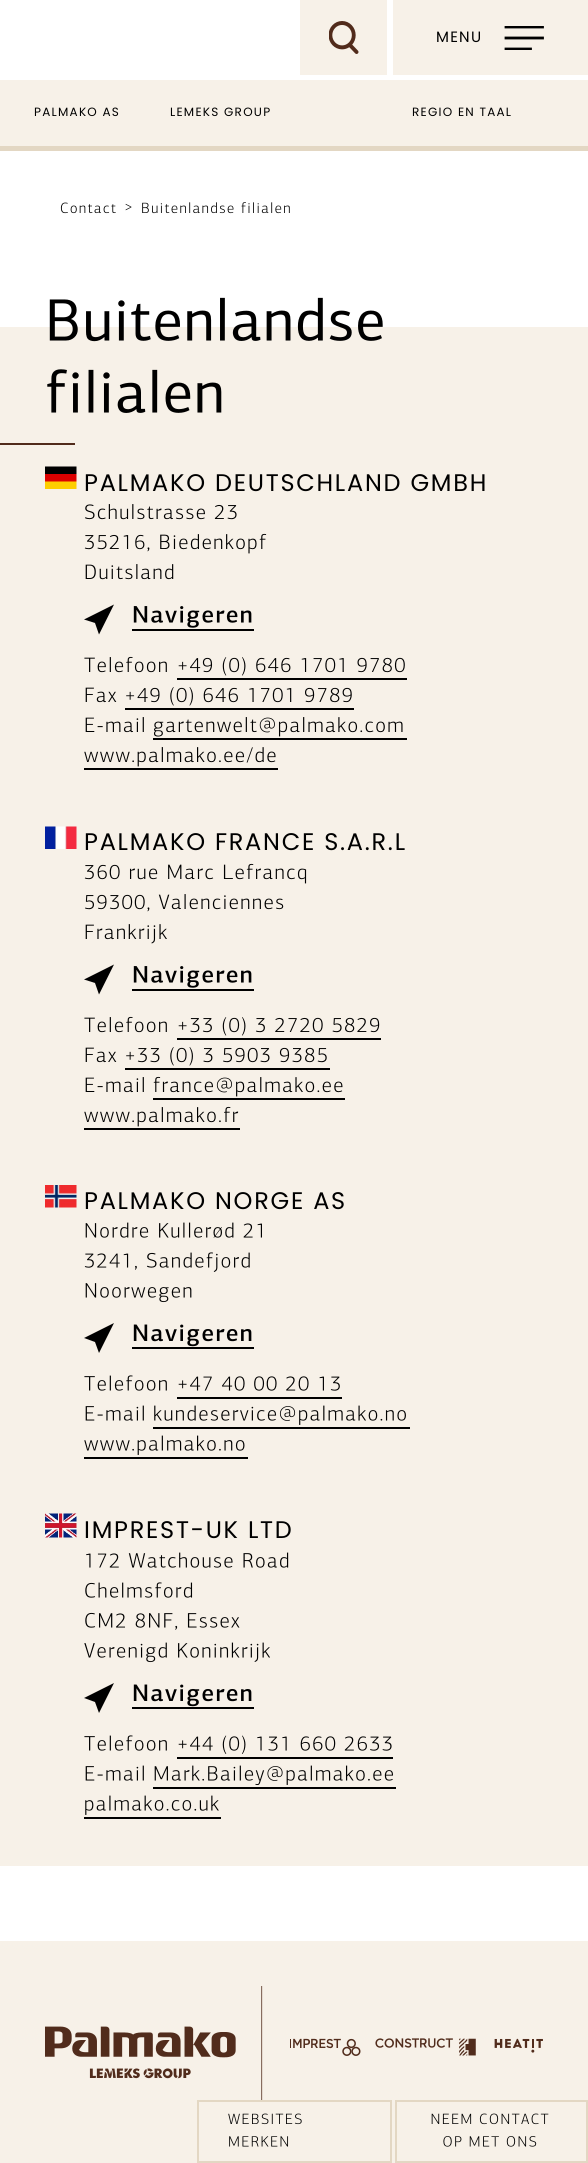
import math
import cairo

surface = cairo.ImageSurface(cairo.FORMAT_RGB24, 588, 2163)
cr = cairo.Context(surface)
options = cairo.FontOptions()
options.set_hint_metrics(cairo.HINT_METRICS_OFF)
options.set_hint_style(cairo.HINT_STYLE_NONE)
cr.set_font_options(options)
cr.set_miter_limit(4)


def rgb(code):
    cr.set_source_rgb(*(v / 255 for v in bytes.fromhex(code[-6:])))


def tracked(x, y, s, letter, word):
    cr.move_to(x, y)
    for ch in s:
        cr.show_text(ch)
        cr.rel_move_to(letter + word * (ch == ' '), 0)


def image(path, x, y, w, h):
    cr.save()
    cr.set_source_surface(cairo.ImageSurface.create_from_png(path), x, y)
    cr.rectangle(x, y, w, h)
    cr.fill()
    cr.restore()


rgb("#ffffff")
cr.paint()
rgb("#f7f1e8")
cr.rectangle(300, 0, 87, 75)
cr.fill()
image("img/1.png", 329, 21, 30, 33)
cr.rectangle(393, 0, 195, 75)
cr.fill()
cr.save()
cr.rectangle(504, 26, 41, 24)
cr.clip()
cr.new_path()
cr.move_to(506, 27)
cr.line_to(542.5, 27)
cr.move_to(506, 38)
cr.line_to(542.5, 38)
cr.move_to(506, 49)
cr.line_to(530.5, 49)
rgb("#000000")
cr.set_line_width(2.8)
cr.set_line_cap(cairo.LINE_CAP_SQUARE)
cr.stroke()
cr.restore()
cr.rectangle(0, 80, 588, 66)
cr.fill()
rgb("#e3d7c3")
cr.rectangle(0, 146, 588, 5)
cr.fill()
image("img/2.png", 60, 202, 56, 12)
image("img/3.png", 125, 203, 7, 8)
image("img/4.png", 142, 202, 148, 12)
rgb("#f7f1e8")
cr.rectangle(0, 327, 588, 1539)
cr.fill()
image("img/5.png", 49, 297, 334, 45)
image("img/6.png", 47, 369, 175, 44)
rgb("#512b1b")
cr.rectangle(0, 443, 75, 2)
cr.fill()
image("img/7.png", 45, 466, 32, 23)
image("img/8.png", 85, 504, 152, 16)
image("img/9.png", 84, 533, 183, 21)
image("img/10.png", 85, 564, 89, 16)
rgb("#000000")
cr.set_fill_rule(cairo.FILL_RULE_EVEN_ODD)
cr.new_path()
cr.move_to(114, 604.5)
cr.line_to(84, 619.5)
cr.line_to(95, 623)
cr.line_to(99, 634.5)
cr.close_path()
cr.fill()
image("img/11.png", 133, 606, 119, 22)
cr.rectangle(132, 629, 122, 2)
cr.fill()
image("img/12.png", 84, 656, 83, 17)
image("img/13.png", 178, 657, 227, 19)
cr.rectangle(177, 678, 230, 2)
cr.fill()
image("img/14.png", 85, 687, 32, 16)
image("img/15.png", 126, 687, 226, 19)
cr.rectangle(125, 708, 229, 2)
cr.fill()
image("img/16.png", 85, 717, 59, 16)
image("img/17.png", 154, 717, 249, 20)
cr.rectangle(153, 738, 254, 2)
cr.fill()
image("img/18.png", 84, 747, 192, 20)
cr.rectangle(84, 768, 194, 2)
cr.fill()
image("img/19.png", 45, 826, 32, 23)
image("img/20.png", 84, 863, 223, 21)
image("img/21.png", 85, 894, 199, 18)
image("img/22.png", 85, 924, 82, 20)
cr.new_path()
cr.move_to(114, 964.5)
cr.line_to(84, 979.5)
cr.line_to(95, 983)
cr.line_to(99, 994.5)
cr.close_path()
cr.fill()
image("img/11.png", 133, 966, 119, 22)
cr.rectangle(132, 989, 122, 2)
cr.fill()
image("img/12.png", 84, 1016, 83, 17)
image("img/23.png", 178, 1017, 202, 19)
cr.rectangle(177, 1038, 204, 2)
cr.fill()
image("img/14.png", 85, 1047, 32, 16)
image("img/24.png", 126, 1047, 201, 19)
cr.rectangle(125, 1068, 205, 2)
cr.fill()
image("img/16.png", 85, 1077, 59, 16)
image("img/25.png", 153, 1076, 190, 21)
cr.rectangle(153, 1098, 192, 2)
cr.fill()
image("img/26.png", 84, 1106, 155, 21)
cr.rectangle(84, 1128, 156, 2)
cr.fill()
image("img/27.png", 45, 1185, 32, 23)
image("img/28.png", 85, 1222, 177, 16)
image("img/29.png", 84, 1252, 166, 20)
image("img/30.png", 85, 1283, 107, 20)
cr.new_path()
cr.move_to(114, 1323)
cr.line_to(84, 1338)
cr.line_to(95, 1342)
cr.line_to(99, 1353)
cr.close_path()
cr.fill()
image("img/31.png", 133, 1324, 119, 23)
cr.rectangle(132, 1347, 122, 2)
cr.fill()
image("img/32.png", 84, 1375, 83, 16)
image("img/33.png", 178, 1376, 162, 15)
cr.rectangle(177, 1397, 165, 2)
cr.fill()
image("img/34.png", 85, 1405, 59, 16)
image("img/35.png", 154, 1405, 252, 20)
cr.rectangle(153, 1427, 257, 2)
cr.fill()
image("img/36.png", 84, 1435, 161, 20)
cr.rectangle(84, 1457, 164, 2)
cr.fill()
image("img/37.png", 45, 1513, 32, 25)
image("img/38.png", 86, 1552, 203, 16)
image("img/39.png", 85, 1582, 108, 16)
image("img/40.png", 85, 1612, 155, 18)
image("img/41.png", 84, 1642, 186, 21)
cr.new_path()
cr.move_to(114, 1683)
cr.line_to(84, 1698)
cr.line_to(95, 1702)
cr.line_to(99, 1713)
cr.close_path()
cr.fill()
image("img/31.png", 133, 1684, 119, 23)
cr.rectangle(132, 1707, 122, 2)
cr.fill()
image("img/32.png", 84, 1735, 83, 16)
image("img/42.png", 178, 1735, 214, 19)
cr.rectangle(177, 1757, 216, 2)
cr.fill()
image("img/34.png", 85, 1765, 59, 16)
image("img/43.png", 154, 1765, 239, 20)
cr.rectangle(153, 1787, 243, 2)
cr.fill()
image("img/44.png", 85, 1795, 134, 20)
cr.rectangle(84, 1817, 137, 2)
cr.fill()
rgb("#f7f1e8")
cr.rectangle(0, 1941, 588, 222)
cr.fill()
image("img/45.png", 45, 1986, 498, 114)
cr.rectangle(198, 2101, 193, 61)
rgb("#e3d7c3")
cr.stroke()
image("img/46.png", 228, 2113, 74, 12)
image("img/47.png", 229, 2136, 60, 11)
cr.rectangle(396, 2101, 191, 61)
cr.stroke()
image("img/48.png", 431, 2113, 118, 12)
image("img/49.png", 443, 2136, 94, 11)
cr.select_font_face("Poppins")
cr.set_font_size(15)
rgb("#000000")
tracked(436, 42, "MENU", 1.25, 0)
cr.set_font_size(12)
for x, y, s in [
    (34, 116, "PALMAKO AS"),
    (170, 116, "LEMEKS GROUP"),
    (412, 116, "REGIO EN TAAL"),
]:
    tracked(x, y, s, 1.25, 0)
cr.set_font_size(24)
for x, y, s in [
    (84, 491, "PALMAKO DEUTSCHLAND GMBH"),
    (84, 850, "PALMAKO FRANCE S.A.R.L"),
    (84, 1209, "PALMAKO NORGE AS"),
    (84, 1538, "IMPREST-UK LTD"),
]:
    tracked(x, y, s, 1.75, 0)
surface.write_to_png("page.png")
